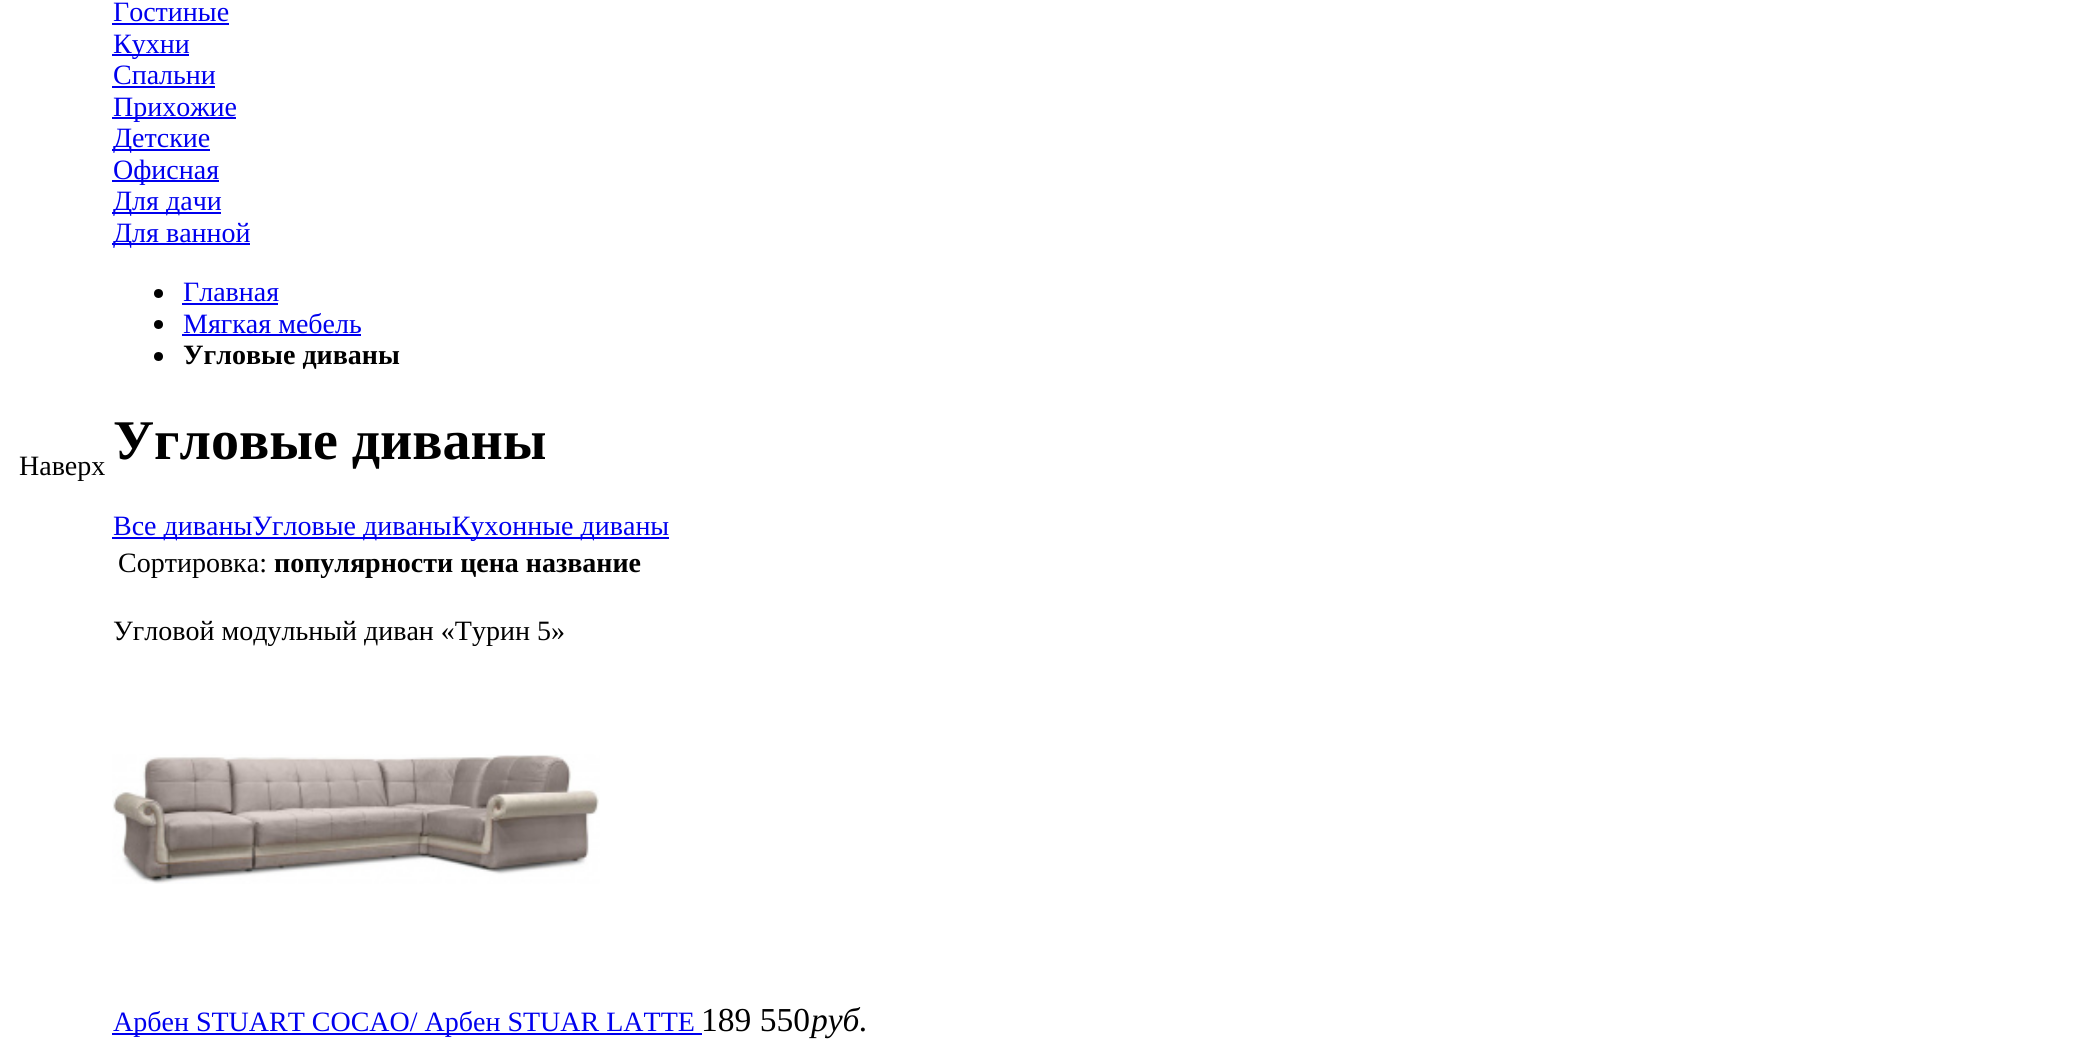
import math
import cairo

surface = cairo.ImageSurface(cairo.FORMAT_RGB24, 2090, 1051)
cr = cairo.Context(surface)
options = cairo.FontOptions()
options.set_hint_metrics(cairo.HINT_METRICS_OFF)
options.set_hint_style(cairo.HINT_STYLE_NONE)
cr.set_font_options(options)
cr.set_miter_limit(4)


def rgb(code):
    cr.set_source_rgb(*(v / 255 for v in bytes.fromhex(code[-6:])))


def image(path, x, y, w, h):
    cr.save()
    cr.set_source_surface(cairo.ImageSurface.create_from_png(path), x, y)
    cr.rectangle(x, y, w, h)
    cr.fill()
    cr.restore()


rgb("#ffffff")
cr.paint()
for x, y, w, h, color in [
    (112, 23, 117, 2, "#0000ee"),
    (112, 54, 77, 2, "#0000ee"),
    (112, 86, 103, 2, "#0000ee"),
    (112, 117, 124, 2, "#0000ee"),
    (112, 149, 98, 2, "#0000ee"),
    (112, 180, 107, 2, "#0000ee"),
    (112, 212, 109, 2, "#0000ee"),
    (112, 243, 138, 2, "#0000ee"),
]:
    rgb(color)
    cr.rectangle(x, y, w, h)
    cr.fill()
rgb("#000000")
cr.arc(158.5, 293.5, 4.5, 0, 2 * math.pi)
cr.fill()
rgb("#0000ee")
cr.rectangle(182, 303, 96, 2)
cr.fill()
rgb("#000000")
cr.arc(158.5, 324.5, 4.5, 0, 2 * math.pi)
cr.fill()
rgb("#0000ee")
cr.rectangle(182, 334, 179, 2)
cr.fill()
rgb("#000000")
cr.arc(158.5, 356.5, 4.5, 0, 2 * math.pi)
cr.fill()
rgb("#0000ee")
cr.rectangle(112, 537, 557, 2)
cr.fill()
image("img/1.png", 112, 754, 488, 130)
cr.rectangle(112, 1033, 590, 2)
cr.fill()
cr.select_font_face("Liberation Serif")
cr.set_font_size(28)
rgb("#000000")
cr.move_to(19, 475)
cr.show_text("Наверх")
rgb("#0000ee")
for x, y, s in [
    (113, 21, "Гостиные"),
    (113, 53, "Кухни"),
    (113, 84, "Спальни"),
    (113, 116, "Прихожие"),
    (113, 147, "Детские"),
    (113, 179, "Офисная"),
    (113, 210, "Для дачи"),
    (113, 242, "Для ванной"),
    (183, 301, "Главная"),
    (183, 333, "Мягкая мебель"),
]:
    cr.move_to(x, y)
    cr.show_text(s)
cr.select_font_face("Liberation Serif", cairo.FONT_SLANT_NORMAL, cairo.FONT_WEIGHT_BOLD)
rgb("#000000")
cr.move_to(183, 364)
cr.show_text("Угловые диваны")
cr.set_font_size(56)
cr.move_to(113, 459)
cr.show_text("Угловые диваны")
cr.select_font_face("Liberation Serif")
cr.set_font_size(28)
rgb("#0000ee")
cr.move_to(113, 535)
cr.show_text("Все диваныУгловые диваныКухонные диваны")
rgb("#000000")
cr.move_to(118, 572)
cr.show_text("Сортировка:")
cr.select_font_face("Liberation Serif", cairo.FONT_SLANT_NORMAL, cairo.FONT_WEIGHT_BOLD)
cr.move_to(274, 572)
cr.show_text("популярности цена название")
cr.select_font_face("Liberation Serif")
cr.move_to(113, 640)
cr.show_text("Угловой модульный диван «Турин 5»")
rgb("#0000ee")
cr.move_to(113, 1031)
cr.show_text("Арбен STUART COCAO/ Арбен STUAR LATTE")
cr.set_font_size(33.5)
rgb("#000000")
cr.move_to(701, 1031)
cr.show_text("189 550")
cr.select_font_face("Liberation Serif", cairo.FONT_SLANT_ITALIC)
cr.move_to(811, 1031)
cr.show_text("руб.")
surface.write_to_png("page.png")
